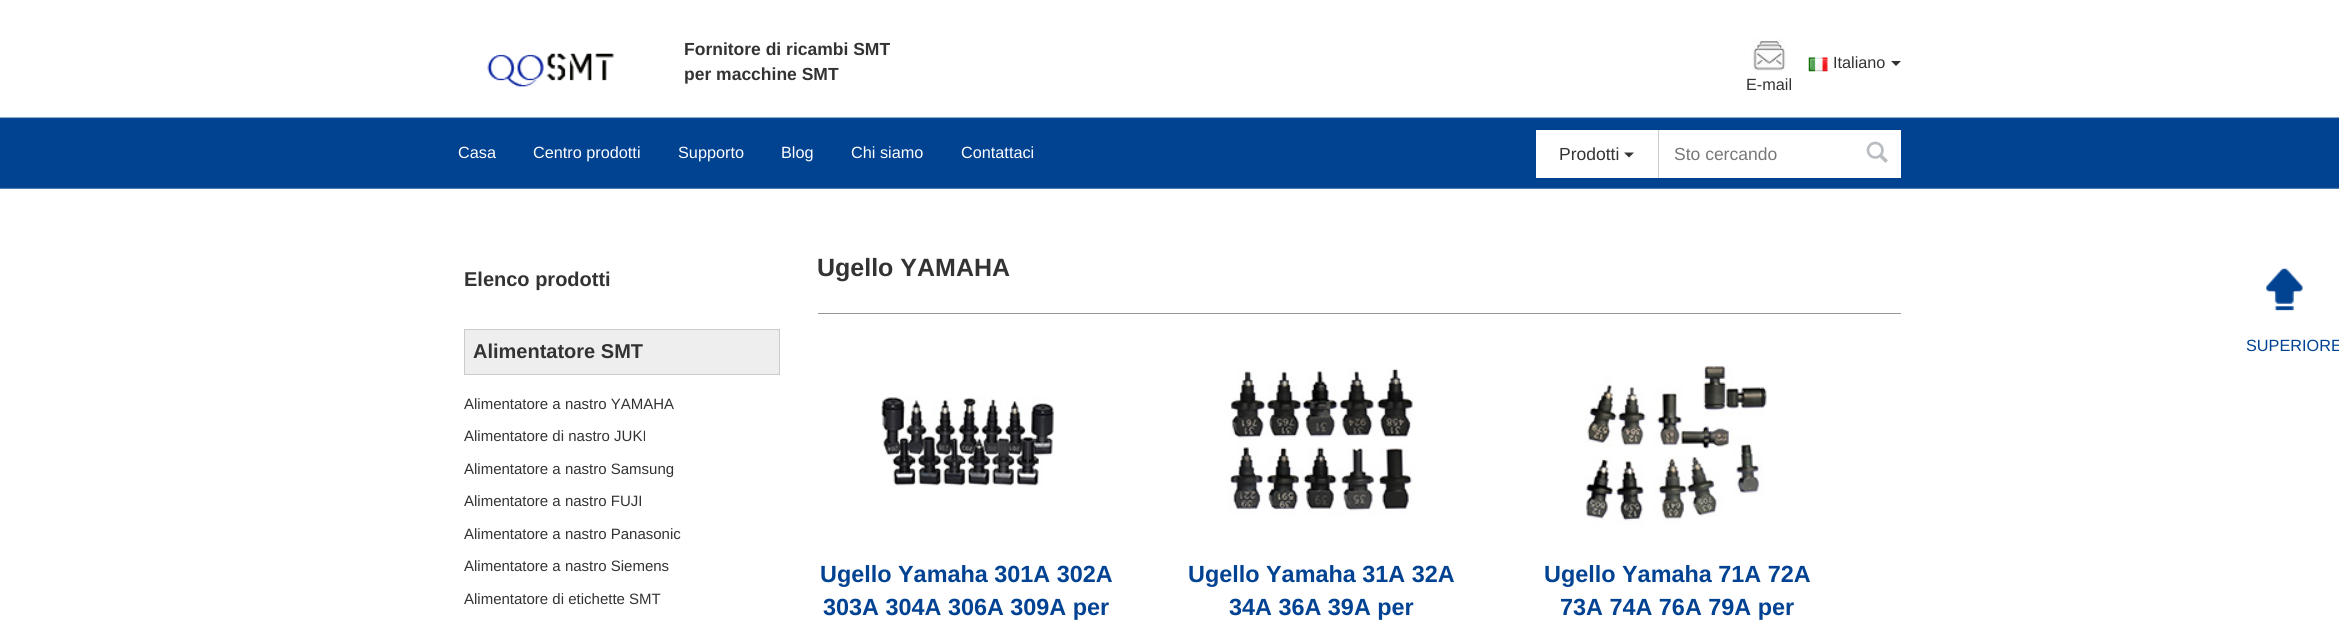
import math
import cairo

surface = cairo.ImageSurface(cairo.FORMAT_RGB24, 2339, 622)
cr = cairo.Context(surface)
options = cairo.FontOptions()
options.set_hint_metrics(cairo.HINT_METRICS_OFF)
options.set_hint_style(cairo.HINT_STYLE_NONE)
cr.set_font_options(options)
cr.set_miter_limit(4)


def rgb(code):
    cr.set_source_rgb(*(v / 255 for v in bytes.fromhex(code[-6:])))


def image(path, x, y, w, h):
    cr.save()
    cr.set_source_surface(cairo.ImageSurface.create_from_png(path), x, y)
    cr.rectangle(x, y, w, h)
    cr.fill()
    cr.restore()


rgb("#ffffff")
cr.paint()
image("img/1.png", 0, 117, 2339, 72)
image("img/2.png", 487, 53, 127, 34)
image("img/3.png", 1808, 57, 20, 15)
rgb("#333333")
cr.new_path()
cr.move_to(1891, 61)
cr.line_to(1901, 61)
cr.line_to(1896, 66)
cr.close_path()
cr.fill()
image("img/4.png", 1751, 39, 35, 32)
rgb("#ffffff")
cr.rectangle(1536, 130, 365, 48)
cr.fill()
rgb("#333333")
cr.new_path()
cr.move_to(1624, 152.5)
cr.line_to(1634, 152.5)
cr.line_to(1629, 157.5)
cr.close_path()
cr.fill()
rgb("#cccccc")
cr.rectangle(1658, 130, 1, 48)
cr.fill()
image("img/5.png", 1866, 141, 22, 22)
rgb("#eeeeee")
cr.rectangle(464.5, 329.5, 315, 45)
cr.fill_preserve()
rgb("#cccccc")
cr.set_line_width(1)
cr.stroke()
rgb("#959595")
cr.rectangle(818, 313, 1083, 1)
cr.fill()
image("img/6.png", 881, 397, 173, 89)
image("img/7.png", 1228, 368, 187, 147)
image("img/8.png", 1585, 366, 182, 160)
image("img/9.png", 2266, 268, 37, 43)
cr.select_font_face("Liberation Sans", cairo.FONT_SLANT_NORMAL, cairo.FONT_WEIGHT_BOLD)
cr.set_font_size(17.5)
rgb("#333333")
cr.move_to(684, 55)
cr.show_text("Fornitore di ricambi SMT")
cr.move_to(684, 80)
cr.show_text("per macchine SMT")
cr.select_font_face("Liberation Sans")
cr.set_font_size(16.25)
cr.move_to(1833, 68)
cr.show_text("Italiano")
cr.move_to(1746, 90)
cr.show_text("E-mail")
rgb("#ffffff")
for x, y, s in [
    (458, 158, "Casa"),
    (533, 158, "Centro prodotti"),
    (678, 158, "Supporto"),
    (781, 158, "Blog"),
    (851, 158, "Chi siamo"),
    (961, 158, "Contattaci"),
]:
    cr.move_to(x, y)
    cr.show_text(s)
cr.set_font_size(17.5)
rgb("#333333")
cr.move_to(1559, 160)
cr.show_text("Prodotti")
rgb("#777777")
cr.move_to(1674, 160)
cr.show_text("Sto cercando")
cr.select_font_face("Liberation Sans", cairo.FONT_SLANT_NORMAL, cairo.FONT_WEIGHT_BOLD)
cr.set_font_size(20)
rgb("#333333")
cr.move_to(464, 286)
cr.show_text("Elenco prodotti")
cr.move_to(473, 358)
cr.show_text("Alimentatore SMT")
cr.select_font_face("Liberation Sans")
cr.set_font_size(15)
for x, y, s in [
    (464, 409, "Alimentatore a nastro YAMAHA"),
    (464, 441, "Alimentatore di nastro JUKI"),
    (464, 474, "Alimentatore a nastro Samsung"),
    (464, 506, "Alimentatore a nastro FUJI"),
    (464, 539, "Alimentatore a nastro Panasonic"),
    (464, 571, "Alimentatore a nastro Siemens"),
    (464, 604, "Alimentatore di etichette SMT"),
]:
    cr.move_to(x, y)
    cr.show_text(s)
cr.select_font_face("Liberation Sans", cairo.FONT_SLANT_NORMAL, cairo.FONT_WEIGHT_BOLD)
cr.set_font_size(25)
cr.move_to(817, 276)
cr.show_text("Ugello YAMAHA")
cr.set_font_size(23.4)
rgb("#014292")
for x, y, s in [
    (820, 582, "Ugello Yamaha 301A 302A"),
    (823, 615, "303A 304A 306A 309A per"),
    (1188, 582, "Ugello Yamaha 31A 32A"),
    (1229, 615, "34A 36A 39A per"),
    (1544, 582, "Ugello Yamaha 71A 72A"),
    (1560, 615, "73A 74A 76A 79A per"),
]:
    cr.move_to(x, y)
    cr.show_text(s)
cr.select_font_face("Liberation Sans")
cr.set_font_size(16.25)
cr.move_to(2246, 351)
cr.show_text("SUPERIORE")
surface.write_to_png("page.png")
